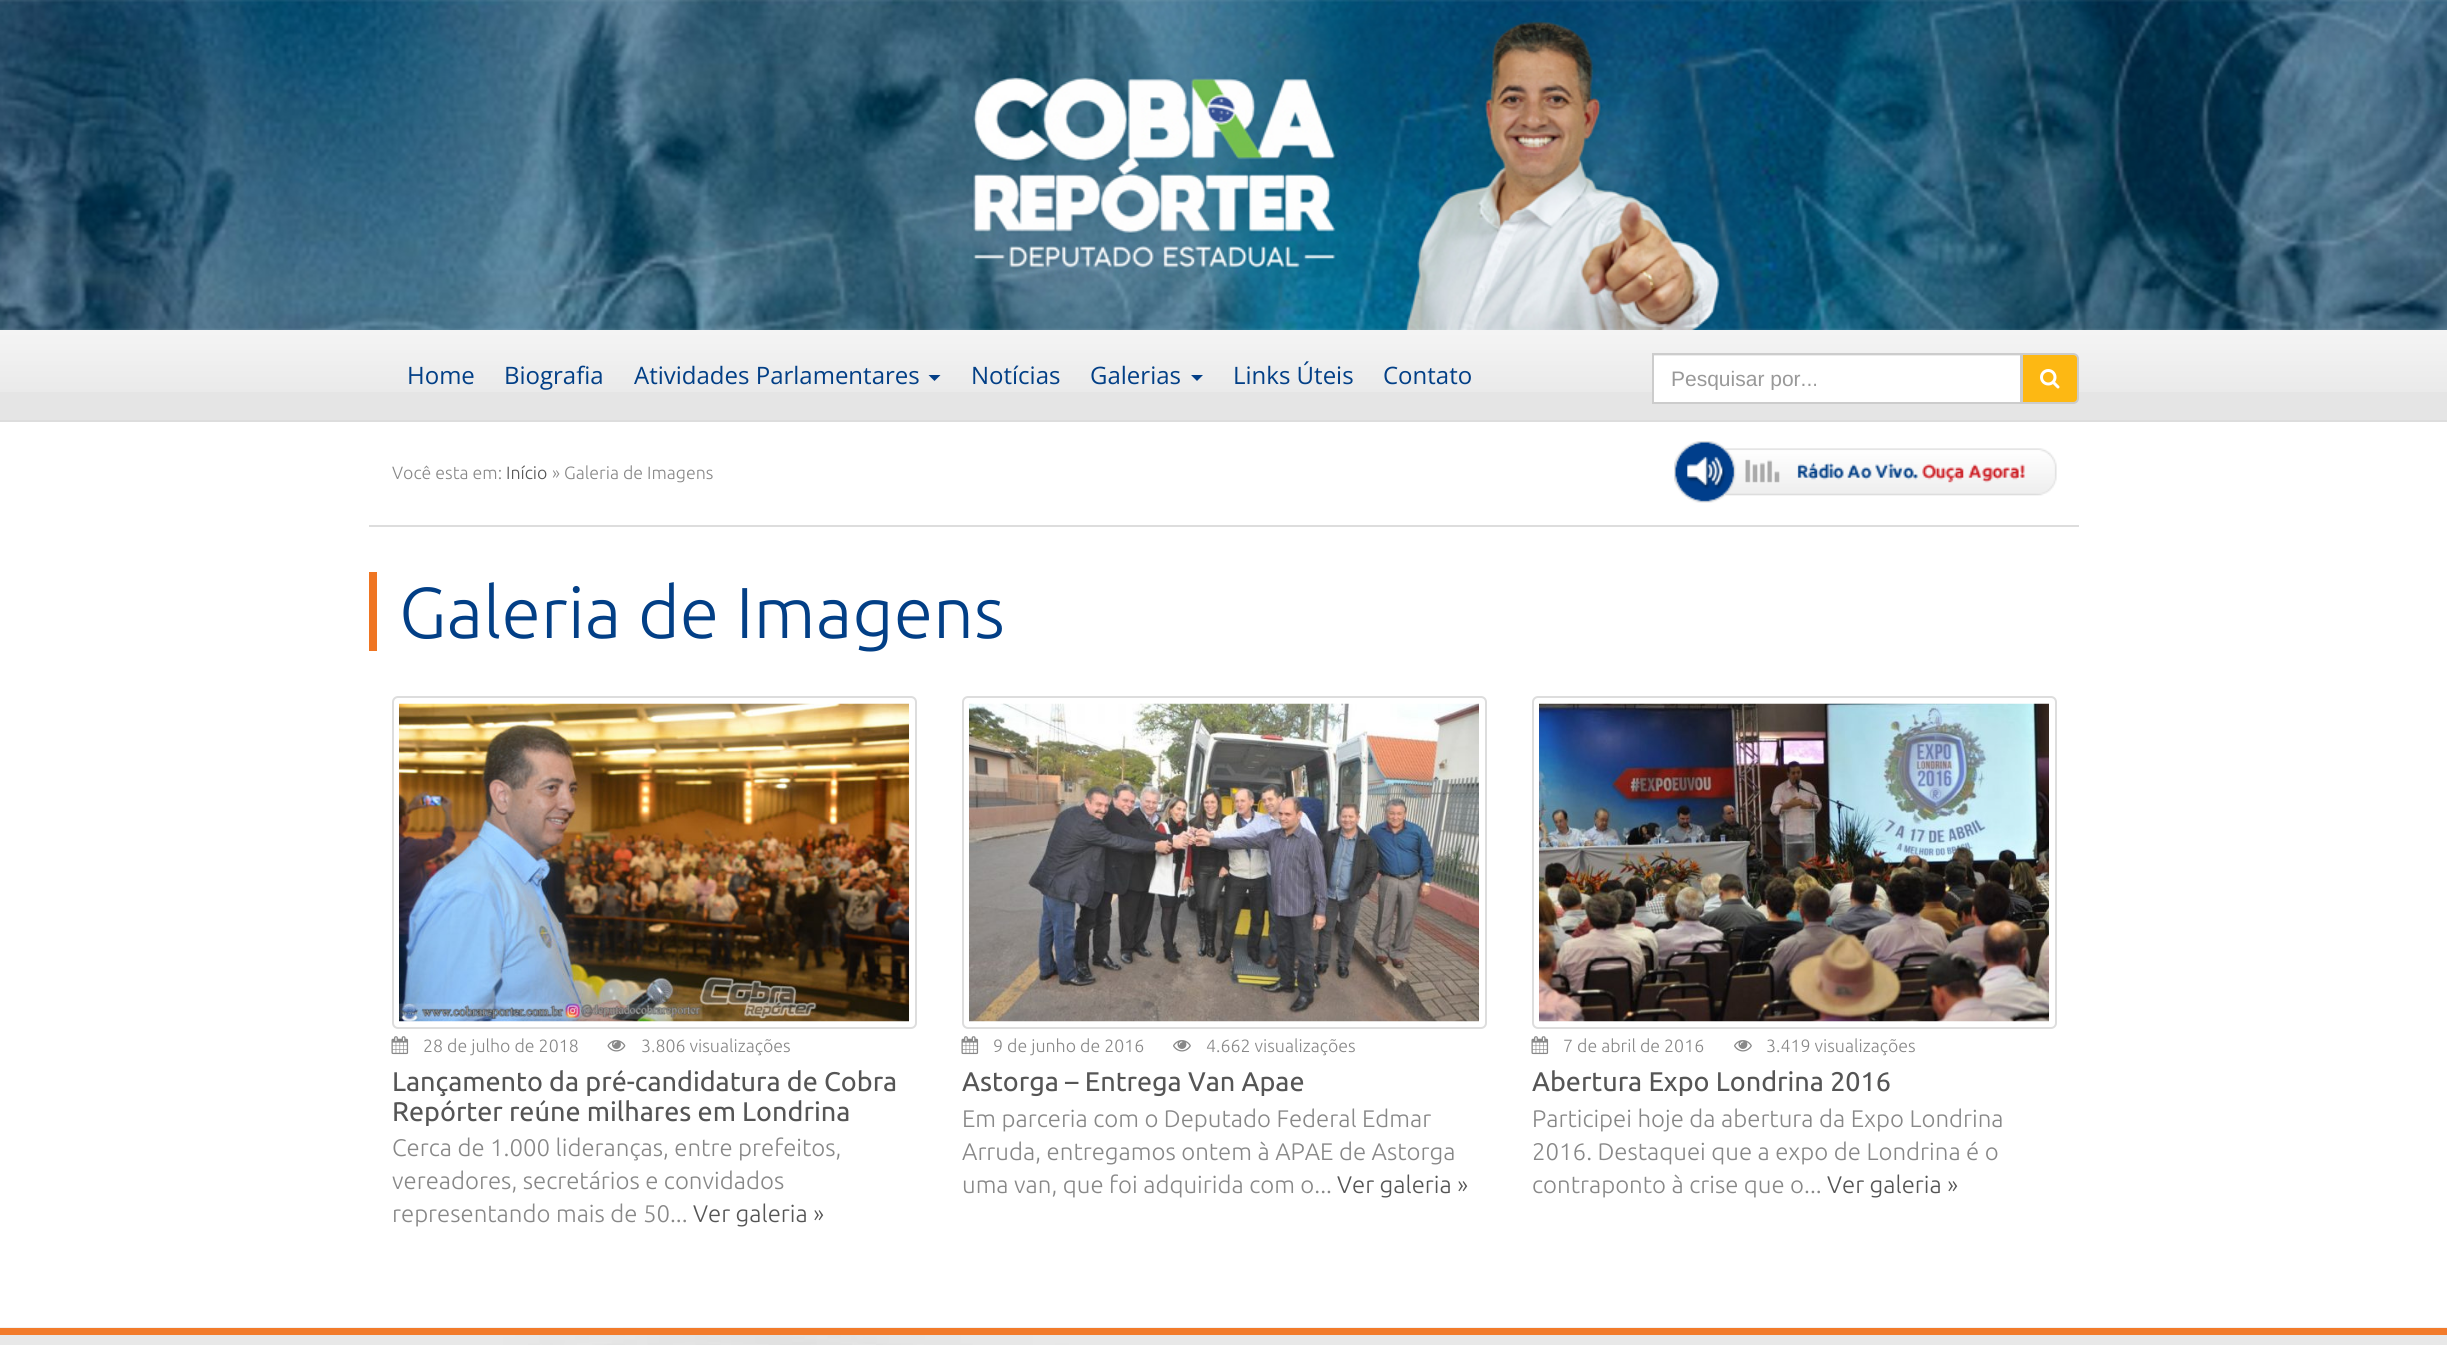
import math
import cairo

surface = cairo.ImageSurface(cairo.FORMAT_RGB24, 2447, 1345)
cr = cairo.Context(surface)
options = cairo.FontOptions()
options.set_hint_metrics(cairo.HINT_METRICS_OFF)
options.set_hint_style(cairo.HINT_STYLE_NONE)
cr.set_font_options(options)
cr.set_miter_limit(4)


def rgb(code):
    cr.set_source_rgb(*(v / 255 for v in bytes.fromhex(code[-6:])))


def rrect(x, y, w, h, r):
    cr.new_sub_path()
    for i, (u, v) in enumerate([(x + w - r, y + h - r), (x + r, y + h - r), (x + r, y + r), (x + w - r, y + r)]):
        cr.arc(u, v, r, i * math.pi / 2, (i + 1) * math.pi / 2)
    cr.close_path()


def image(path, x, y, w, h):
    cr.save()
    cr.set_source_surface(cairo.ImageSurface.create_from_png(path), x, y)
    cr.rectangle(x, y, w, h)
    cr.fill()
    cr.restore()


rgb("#ffffff")
cr.paint()
image("img/1.png", 0, 0, 2447, 330)
rgb("#e5e5e5")
cr.rectangle(0, 392, 2447, 28)
cr.fill()
image("img/2.png", 0, 330, 2447, 62)
rgb("#dddddd")
cr.rectangle(0, 420, 2447, 2)
cr.fill()
rgb("#033f87")
cr.new_path()
cr.move_to(928.5, 375)
cr.line_to(940.5, 375)
cr.line_to(934.5, 381)
cr.close_path()
cr.fill()
cr.new_path()
cr.move_to(1191, 375)
cr.line_to(1203, 375)
cr.line_to(1197, 381)
cr.close_path()
cr.fill()
rgb("#ffffff")
cr.rectangle(1654, 356, 366, 46)
cr.fill()
rgb("#ececec")
cr.rectangle(1653, 355, 368, 1)
cr.fill()
cr.rectangle(1653, 354, 368, 49)
rgb("#cccccc")
cr.stroke()
rgb("#fdb813")
cr.new_path()
cr.move_to(2022, 354)
cr.line_to(2073, 354)
cr.curve_to(2076, 354, 2078, 356, 2078, 359)
cr.line_to(2078, 398)
cr.curve_to(2078, 401, 2076, 403, 2073, 403)
cr.line_to(2022, 403)
cr.close_path()
cr.fill_preserve()
rgb("#cccccc")
cr.stroke()
image("img/3.png", 2040, 369, 20, 20)
rgb("#dddddd")
cr.rectangle(369, 525, 1710, 2)
cr.fill()
image("img/4.png", 1674, 441, 383, 62)
rgb("#ef7522")
cr.rectangle(369, 572, 8, 79)
cr.fill()
rrect(393, 697, 523, 331, 5)
rgb("#dddddd")
cr.stroke()
image("img/5.png", 399, 703, 510, 319)
image("img/6.png", 391, 1036, 18, 19)
image("img/7.png", 607, 1040, 19, 12)
rrect(963, 697, 523, 331, 5)
cr.stroke()
image("img/8.png", 969, 703, 510, 319)
image("img/6.png", 961, 1036, 18, 19)
image("img/9.png", 1173, 1040, 18, 12)
rrect(1533, 697, 523, 331, 5)
cr.stroke()
image("img/10.png", 1539, 703, 510, 319)
image("img/6.png", 1531, 1036, 18, 19)
image("img/9.png", 1734, 1040, 18, 12)
image("img/11.png", 0, 1327, 2447, 18)
rgb("#f27b2b")
cr.rectangle(0, 1328, 2447, 7)
cr.fill()
cr.select_font_face("Open Sans")
cr.set_font_size(24)
rgb("#023f86")
for x, y, s in [
    (407, 384, "Home"),
    (504, 384, "Biografia"),
    (634, 384, "Atividades Parlamentares"),
    (971, 384, "Notícias"),
    (1090, 384, "Galerias"),
    (1233, 384, "Links Úteis"),
    (1383, 384, "Contato"),
]:
    cr.move_to(x, y)
    cr.show_text(s)
cr.save()
cr.rectangle(1671, 366, 332, 24)
cr.clip()
cr.select_font_face("Liberation Sans")
cr.set_font_size(21)
rgb("#999999")
cr.move_to(1671, 386)
cr.show_text("Pesquisar por...")
cr.restore()
cr.select_font_face("Ubuntu Light")
cr.set_font_size(17.75)
rgb("#888888")
cr.move_to(392, 479)
cr.show_text("Você esta em:")
rgb("#555555")
cr.move_to(506, 479)
cr.show_text("Início")
rgb("#888888")
cr.move_to(552, 479)
cr.show_text("» Galeria de Imagens")
cr.set_font_size(72)
rgb("#023f86")
cr.move_to(399, 638)
cr.show_text("Galeria de Imagens")
cr.set_font_size(17.75)
rgb("#888888")
cr.move_to(423, 1052)
cr.show_text("28 de julho de 2018")
cr.move_to(641, 1052)
cr.show_text("3.806 visualizações")
cr.select_font_face("Ubuntu")
cr.set_font_size(27)
rgb("#555555")
cr.move_to(392, 1091)
cr.show_text("Lançamento da pré-candidatura de Cobra")
cr.move_to(392, 1121)
cr.show_text("Repórter reúne milhares em Londrina")
cr.select_font_face("Ubuntu Light")
cr.set_font_size(24)
rgb("#888888")
for x, y, s in [
    (392, 1156, "Cerca de 1.000 lideranças, entre prefeitos,"),
    (392, 1189, "vereadores, secretários e convidados"),
    (392, 1222, "representando mais de 50..."),
]:
    cr.move_to(x, y)
    cr.show_text(s)
rgb("#555555")
cr.move_to(693, 1222)
cr.show_text("Ver galeria »")
cr.set_font_size(17.75)
rgb("#888888")
cr.move_to(993, 1052)
cr.show_text("9 de junho de 2016")
cr.move_to(1206, 1052)
cr.show_text("4.662 visualizações")
cr.select_font_face("Ubuntu")
cr.set_font_size(27)
rgb("#555555")
cr.move_to(962, 1091)
cr.show_text("Astorga – Entrega Van Apae")
cr.select_font_face("Ubuntu Light")
cr.set_font_size(24)
rgb("#888888")
for x, y, s in [
    (962, 1127, "Em parceria com o Deputado Federal Edmar"),
    (962, 1160, "Arruda, entregamos ontem à APAE de Astorga"),
    (962, 1193, "uma van, que foi adquirida com o..."),
]:
    cr.move_to(x, y)
    cr.show_text(s)
rgb("#555555")
cr.move_to(1337, 1193)
cr.show_text("Ver galeria »")
cr.set_font_size(17.75)
rgb("#888888")
cr.move_to(1563, 1052)
cr.show_text("7 de abril de 2016")
cr.move_to(1766, 1052)
cr.show_text("3.419 visualizações")
cr.select_font_face("Ubuntu")
cr.set_font_size(27)
rgb("#555555")
cr.move_to(1532, 1091)
cr.show_text("Abertura Expo Londrina 2016")
cr.select_font_face("Ubuntu Light")
cr.set_font_size(24)
rgb("#888888")
for x, y, s in [
    (1532, 1127, "Participei hoje da abertura da Expo Londrina"),
    (1532, 1160, "2016. Destaquei que a expo de Londrina é o"),
    (1532, 1193, "contraponto à crise que o..."),
]:
    cr.move_to(x, y)
    cr.show_text(s)
rgb("#555555")
cr.move_to(1827, 1193)
cr.show_text("Ver galeria »")
surface.write_to_png("page.png")
